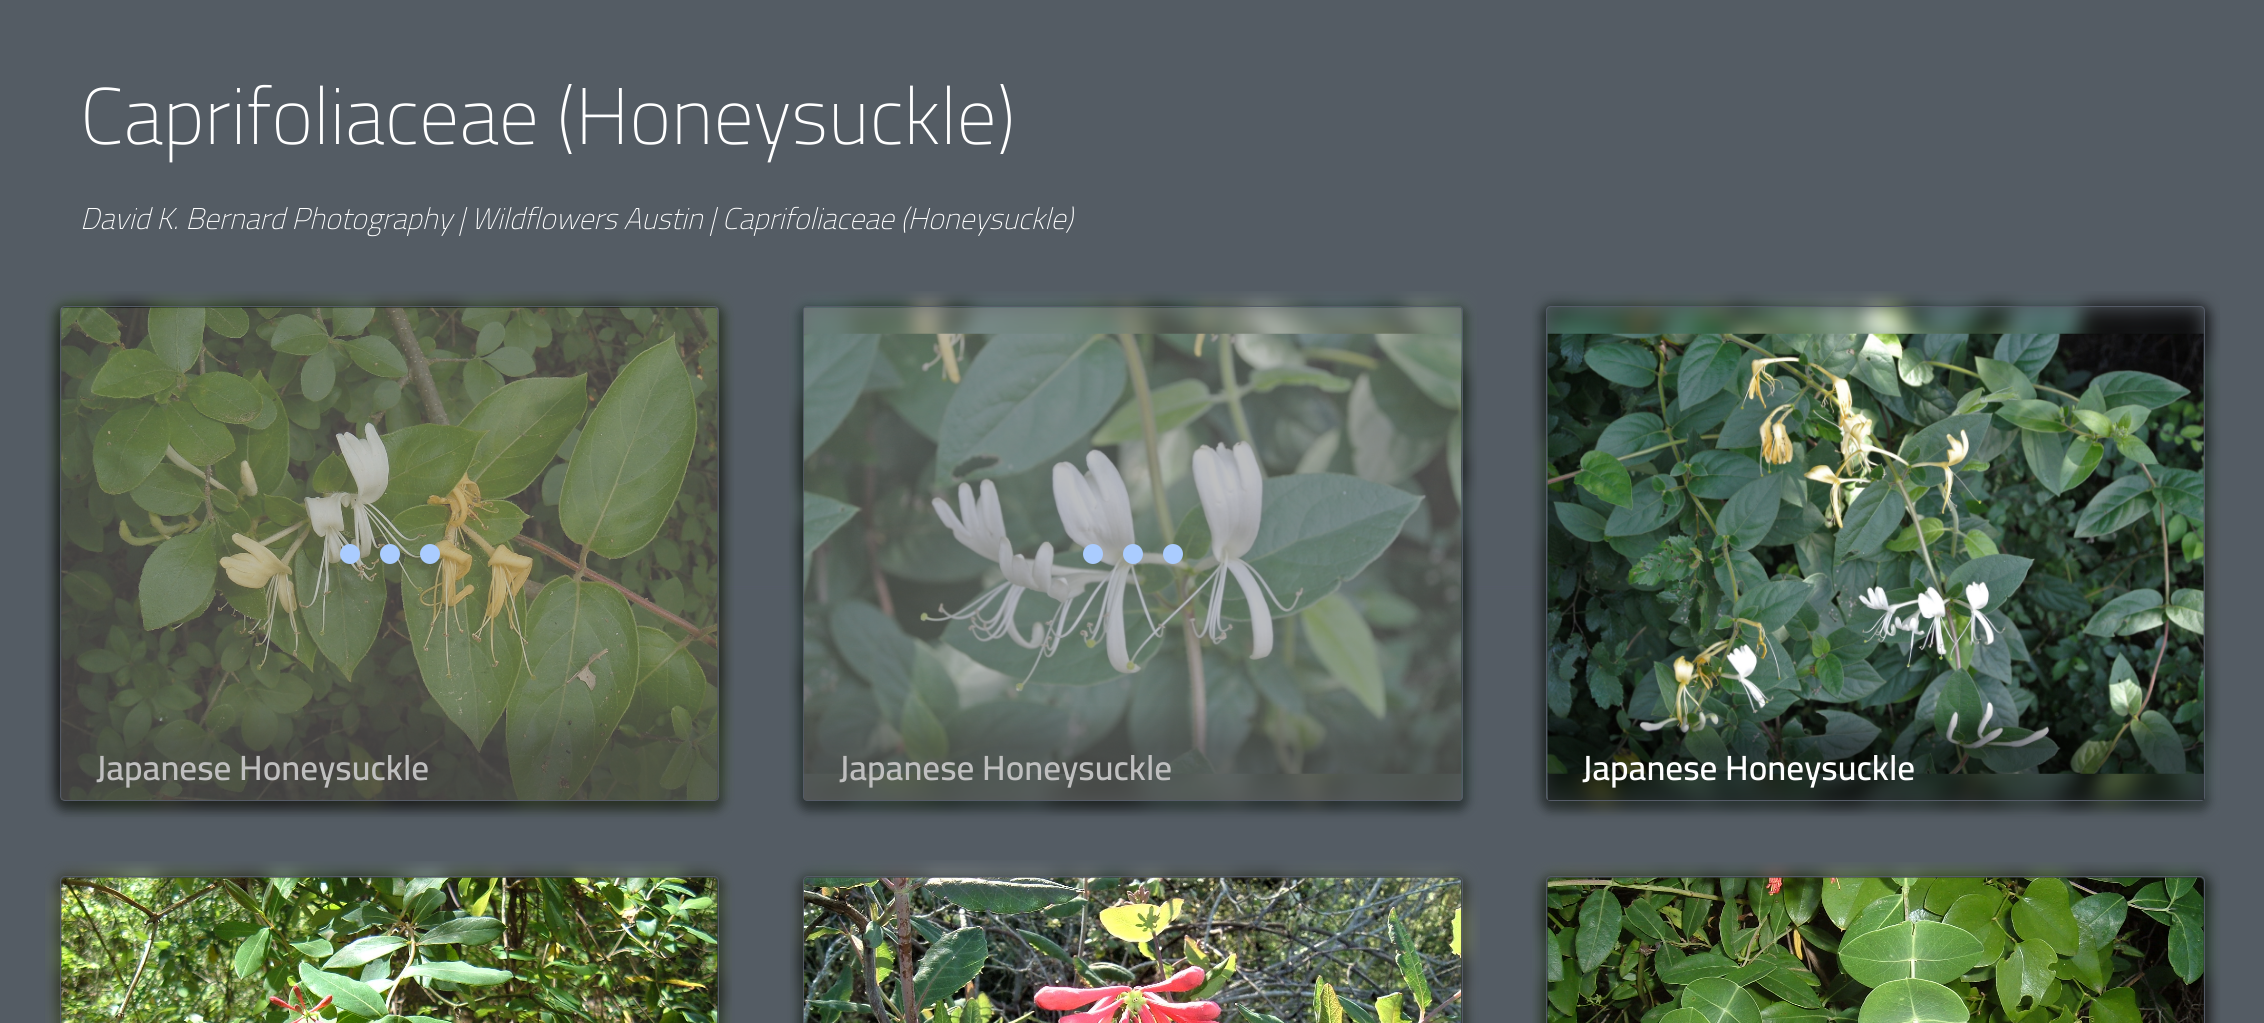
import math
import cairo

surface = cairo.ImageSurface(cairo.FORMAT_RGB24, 2264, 1023)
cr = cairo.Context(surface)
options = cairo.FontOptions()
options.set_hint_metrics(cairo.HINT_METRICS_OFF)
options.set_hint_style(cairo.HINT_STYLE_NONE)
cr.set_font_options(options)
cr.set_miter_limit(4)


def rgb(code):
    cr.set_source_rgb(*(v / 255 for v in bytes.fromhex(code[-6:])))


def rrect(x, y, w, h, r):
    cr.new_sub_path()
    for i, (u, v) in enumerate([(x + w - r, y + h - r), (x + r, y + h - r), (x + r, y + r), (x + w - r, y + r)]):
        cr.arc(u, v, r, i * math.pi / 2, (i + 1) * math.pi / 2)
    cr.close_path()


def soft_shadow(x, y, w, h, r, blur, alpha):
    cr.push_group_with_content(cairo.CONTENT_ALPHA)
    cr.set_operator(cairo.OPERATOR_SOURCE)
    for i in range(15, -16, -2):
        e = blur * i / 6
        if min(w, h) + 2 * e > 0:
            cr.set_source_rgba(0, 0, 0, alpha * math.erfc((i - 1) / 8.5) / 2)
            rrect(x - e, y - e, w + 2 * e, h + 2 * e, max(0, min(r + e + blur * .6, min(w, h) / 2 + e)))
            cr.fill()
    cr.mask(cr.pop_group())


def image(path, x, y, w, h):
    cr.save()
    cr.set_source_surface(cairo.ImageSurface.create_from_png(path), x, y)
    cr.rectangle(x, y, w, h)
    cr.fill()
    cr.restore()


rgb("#545c64")
cr.paint()
rgb("#555b67")
cr.rectangle(717, 586, 831, 1)
cr.fill()
cr.rectangle(717, 588, 831, 1)
cr.fill()
image("img/1.png", 45, 291, 689, 526)
rgb("#000000")
soft_shadow(55, 306, 669, 505, 10, 5, 0.4)
rrect(60.5, 306.5, 658, 494, 4.5)
rgb("#555b68")
cr.set_line_width(1)
cr.stroke()
image("img/2.png", 61, 307, 657, 493)
gradient = cairo.LinearGradient(389, 560, 389, 800)
gradient.add_color_stop_rgba(0.6, 0, 0, 0, 0)
gradient.add_color_stop_rgba(0.78, 0, 0, 0, 0.5)
cr.set_source(gradient)
cr.rectangle(61, 706, 657, 94)
cr.fill()
image("img/3.png", 789, 291, 688, 525)
cr.save()
cr.set_fill_rule(cairo.FILL_RULE_EVEN_ODD)
cr.new_path()
cr.move_to(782, 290)
cr.line_to(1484, 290)
cr.line_to(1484, 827)
cr.line_to(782, 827)
cr.close_path()
cr.move_to(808, 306)
cr.line_to(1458, 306)
cr.curve_to(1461, 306, 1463, 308, 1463, 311)
cr.line_to(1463, 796)
cr.curve_to(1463, 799, 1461, 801, 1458, 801)
cr.line_to(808, 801)
cr.curve_to(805, 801, 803, 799, 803, 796)
cr.line_to(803, 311)
cr.curve_to(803, 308, 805, 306, 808, 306)
cr.close_path()
cr.clip()
rgb("#000000")
soft_shadow(798, 306, 670, 505, 10, 5, 0.4)
cr.restore()
rrect(803.5, 306.5, 659, 494, 4.5)
rgb("#555b68")
cr.stroke()
image("img/4.png", 803, 333, 659, 441)
gradient = cairo.LinearGradient(1133, 560, 1133, 800)
gradient.add_color_stop_rgba(0.6, 0, 0, 0, 0)
gradient.add_color_stop_rgba(0.78, 0, 0, 0, 0.5)
cr.set_source(gradient)
cr.rectangle(804, 706, 657, 94)
cr.fill()
image("img/5.png", 1532, 291, 688, 525)
cr.save()
cr.set_fill_rule(cairo.FILL_RULE_EVEN_ODD)
cr.new_path()
cr.move_to(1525, 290)
cr.line_to(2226, 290)
cr.line_to(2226, 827)
cr.line_to(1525, 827)
cr.close_path()
cr.move_to(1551, 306)
cr.line_to(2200, 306)
cr.curve_to(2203, 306, 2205, 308, 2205, 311)
cr.line_to(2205, 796)
cr.curve_to(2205, 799, 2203, 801, 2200, 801)
cr.line_to(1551, 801)
cr.curve_to(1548, 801, 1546, 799, 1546, 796)
cr.line_to(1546, 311)
cr.curve_to(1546, 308, 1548, 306, 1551, 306)
cr.close_path()
cr.clip()
rgb("#000000")
soft_shadow(1541, 306, 669, 505, 10, 5, 0.4)
cr.restore()
rrect(1546.5, 306.5, 658, 494, 4.5)
rgb("#555b68")
cr.stroke()
image("img/6.png", 1547, 333, 657, 441)
gradient = cairo.LinearGradient(1876, 560, 1876, 800)
gradient.add_color_stop_rgba(0.6, 0, 0, 0, 0)
gradient.add_color_stop_rgba(0.78, 0, 0, 0, 0.5)
cr.set_source(gradient)
cr.rectangle(1548, 706, 656, 94)
cr.fill()
image("img/7.png", 45, 861, 687, 162)
rgb("#000000")
soft_shadow(55, 876, 669, 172, 10, 5, 0.4)
rrect(60.5, 876.5, 658, 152, 4.5)
rgb("#555b68")
cr.stroke()
image("img/8.png", 61, 877, 657, 146)
image("img/9.png", 790, 860, 690, 163)
rgb("#000000")
soft_shadow(798, 876, 670, 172, 10, 5, 0.4)
rrect(803.5, 876.5, 659, 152, 4.5)
rgb("#555b68")
cr.stroke()
image("img/10.png", 803, 877, 659, 146)
image("img/11.png", 1532, 862, 688, 161)
rgb("#000000")
soft_shadow(1541, 876, 669, 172, 10, 5, 0.4)
rrect(1546.5, 876.5, 658, 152, 4.5)
rgb("#555b68")
cr.stroke()
image("img/12.png", 1547, 877, 657, 146)
cr.select_font_face("Cairo ExtraLight")
cr.set_font_size(80)
rgb("#ffffff")
cr.move_to(80, 144)
cr.show_text("Caprifoliaceae (Honeysuckle)")
cr.select_font_face("Cairo ExtraLight", cairo.FONT_SLANT_ITALIC)
cr.set_font_size(30)
cr.move_to(80, 229)
cr.show_text("David K. Bernard Photography | Wildflowers Austin | Caprifoliaceae (Honeysuckle)")
cr.select_font_face("Cairo SemiBold")
cr.set_font_size(35)
cr.move_to(96, 780)
cr.show_text("Japanese Honeysuckle")
cr.set_source_rgba(0.502, 0.502, 0.502, 0.5)
cr.rectangle(61, 308, 657, 492)
cr.fill()
rgb("#aaccff")
cr.arc(430, 554, 10, 0, 2 * math.pi)
cr.fill()
cr.arc(390, 554, 10, 0, 2 * math.pi)
cr.fill()
cr.arc(350, 554, 10, 0, 2 * math.pi)
cr.fill()
rgb("#ffffff")
cr.move_to(839, 780)
cr.show_text("Japanese Honeysuckle")
cr.set_source_rgba(0.502, 0.502, 0.502, 0.5)
cr.rectangle(804, 308, 657, 492)
cr.fill()
rgb("#aaccff")
cr.arc(1173, 554, 10, 0, 2 * math.pi)
cr.fill()
cr.arc(1133, 554, 10, 0, 2 * math.pi)
cr.fill()
cr.arc(1093, 554, 10, 0, 2 * math.pi)
cr.fill()
rgb("#ffffff")
cr.move_to(1582, 780)
cr.show_text("Japanese Honeysuckle")
surface.write_to_png("page.png")
